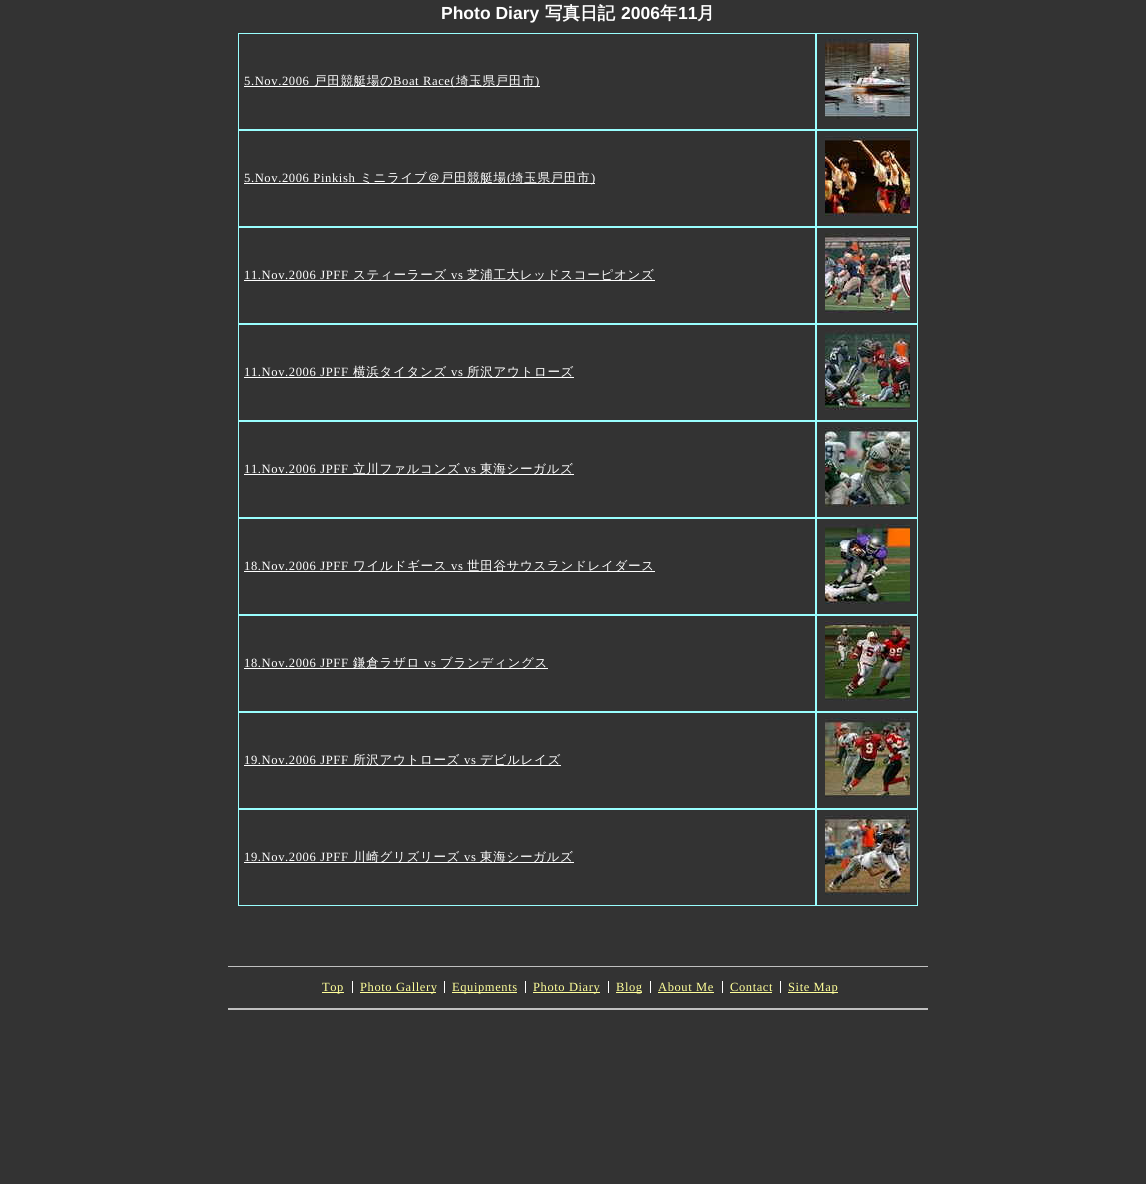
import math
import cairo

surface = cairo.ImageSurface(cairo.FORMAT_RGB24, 1146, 1184)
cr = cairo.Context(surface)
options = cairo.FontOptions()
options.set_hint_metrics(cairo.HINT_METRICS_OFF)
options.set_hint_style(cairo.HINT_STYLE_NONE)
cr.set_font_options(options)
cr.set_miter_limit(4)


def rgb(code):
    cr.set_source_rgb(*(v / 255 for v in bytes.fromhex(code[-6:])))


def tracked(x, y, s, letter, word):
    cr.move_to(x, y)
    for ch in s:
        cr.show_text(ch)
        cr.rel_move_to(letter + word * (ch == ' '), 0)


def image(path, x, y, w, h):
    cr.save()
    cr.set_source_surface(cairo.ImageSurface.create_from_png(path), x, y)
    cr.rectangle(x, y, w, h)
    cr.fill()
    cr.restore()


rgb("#333333")
cr.paint()
cr.rectangle(238.5, 33.5, 577, 96)
rgb("#99ffff")
cr.set_line_width(1)
cr.stroke()
rgb("#ffffff")
cr.rectangle(244, 86, 296, 1)
cr.fill()
cr.rectangle(816.5, 33.5, 101, 96)
rgb("#99ffff")
cr.stroke()
image("img/1.png", 825, 39, 85, 80)
cr.rectangle(238.5, 130.5, 577, 96)
cr.stroke()
rgb("#ffffff")
cr.rectangle(244, 183, 351, 1)
cr.fill()
cr.rectangle(816.5, 130.5, 101, 96)
rgb("#99ffff")
cr.stroke()
image("img/2.png", 825, 136, 85, 80)
cr.rectangle(238.5, 227.5, 577, 96)
cr.stroke()
rgb("#ffffff")
cr.rectangle(244, 280, 411, 1)
cr.fill()
cr.rectangle(816.5, 227.5, 101, 96)
rgb("#99ffff")
cr.stroke()
image("img/3.png", 825, 233, 85, 80)
cr.rectangle(238.5, 324.5, 577, 96)
cr.stroke()
rgb("#ffffff")
cr.rectangle(244, 377, 330, 1)
cr.fill()
cr.rectangle(816.5, 324.5, 101, 96)
rgb("#99ffff")
cr.stroke()
image("img/4.png", 825, 330, 85, 80)
cr.rectangle(238.5, 421.5, 577, 96)
cr.stroke()
rgb("#ffffff")
cr.rectangle(244, 474, 330, 1)
cr.fill()
cr.rectangle(816.5, 421.5, 101, 96)
rgb("#99ffff")
cr.stroke()
image("img/5.png", 825, 427, 85, 80)
cr.rectangle(238.5, 518.5, 577, 96)
cr.stroke()
rgb("#ffffff")
cr.rectangle(244, 571, 411, 1)
cr.fill()
cr.rectangle(816.5, 518.5, 101, 96)
rgb("#99ffff")
cr.stroke()
image("img/6.png", 825, 524, 85, 80)
cr.rectangle(238.5, 615.5, 577, 96)
cr.stroke()
rgb("#ffffff")
cr.rectangle(244, 668, 304, 1)
cr.fill()
cr.rectangle(816.5, 615.5, 101, 96)
rgb("#99ffff")
cr.stroke()
image("img/7.png", 825, 621, 85, 80)
cr.rectangle(238.5, 712.5, 577, 96)
cr.stroke()
rgb("#ffffff")
cr.rectangle(244, 765, 317, 1)
cr.fill()
cr.rectangle(816.5, 712.5, 101, 96)
rgb("#99ffff")
cr.stroke()
image("img/8.png", 825, 718, 85, 80)
cr.rectangle(238.5, 809.5, 577, 96)
cr.stroke()
rgb("#ffffff")
cr.rectangle(244, 862, 330, 1)
cr.fill()
cr.rectangle(816.5, 809.5, 101, 96)
rgb("#99ffff")
cr.stroke()
image("img/9.png", 825, 815, 85, 80)
for x, y, w, h, color in [
    (228, 966, 700, 1, "#c0c0c0"),
    (228, 1008, 700, 2, "#c0c0c0"),
    (322, 992, 22, 1, "#ffff99"),
    (352, 981, 1, 12, "#ffffff"),
    (360, 992, 76, 1, "#ffff99"),
    (444, 981, 1, 12, "#ffffff"),
    (452, 992, 65, 1, "#ffff99"),
    (525, 981, 1, 12, "#ffffff"),
    (533, 992, 67, 1, "#ffff99"),
    (608, 981, 1, 12, "#ffffff"),
    (616, 992, 26, 1, "#ffff99"),
    (650, 981, 1, 12, "#ffffff"),
    (658, 992, 56, 1, "#ffff99"),
    (722, 981, 1, 12, "#ffffff"),
    (730, 992, 42, 1, "#ffff99"),
    (780, 981, 1, 12, "#ffffff"),
    (788, 992, 50, 1, "#ffff99"),
]:
    rgb(color)
    cr.rectangle(x, y, w, h)
    cr.fill()
cr.select_font_face("Liberation Sans", cairo.FONT_SLANT_NORMAL, cairo.FONT_WEIGHT_BOLD)
cr.set_font_size(17.5)
rgb("#ffffff")
cr.move_to(441, 19)
cr.show_text("Photo Diary")
cr.select_font_face("WenQuanYi Zen Hei", cairo.FONT_SLANT_NORMAL, cairo.FONT_WEIGHT_BOLD)
cr.move_to(545, 19)
cr.show_text("写真日記")
cr.select_font_face("Liberation Sans", cairo.FONT_SLANT_NORMAL, cairo.FONT_WEIGHT_BOLD)
cr.move_to(621, 19)
cr.show_text("2006")
cr.select_font_face("WenQuanYi Zen Hei", cairo.FONT_SLANT_NORMAL, cairo.FONT_WEIGHT_BOLD)
cr.move_to(660, 19)
cr.show_text("年")
cr.select_font_face("Liberation Sans", cairo.FONT_SLANT_NORMAL, cairo.FONT_WEIGHT_BOLD)
cr.move_to(678, 19)
cr.show_text("11")
cr.select_font_face("WenQuanYi Zen Hei", cairo.FONT_SLANT_NORMAL, cairo.FONT_WEIGHT_BOLD)
cr.move_to(697, 19)
cr.show_text("月")
cr.select_font_face("Liberation Serif")
cr.set_font_size(12.6)
tracked(244, 85, "5.Nov.2006", 0.6, 0)
cr.select_font_face("WenQuanYi Zen Hei Medium")
tracked(314, 85, "戸田競艇場の", 0.6, 0)
cr.select_font_face("Liberation Serif")
tracked(393, 85, "Boat Race(", 0.6, 0)
cr.select_font_face("WenQuanYi Zen Hei Medium")
tracked(456, 85, "埼玉県戸田市", 0.6, 0)
cr.select_font_face("Liberation Serif")
tracked(535, 85, ")", 0.6, 0)
tracked(244, 182, "5.Nov.2006 Pinkish", 0.6, 0)
cr.select_font_face("WenQuanYi Zen Hei Medium")
tracked(360, 182, "ミニライブ＠戸田競艇場", 0.6, 0)
cr.select_font_face("Liberation Serif")
tracked(507, 182, "(", 0.6, 0)
cr.select_font_face("WenQuanYi Zen Hei Medium")
tracked(511, 182, "埼玉県戸田市", 0.6, 0)
cr.select_font_face("Liberation Serif")
tracked(591, 182, ")", 0.6, 0)
tracked(244, 279, "11.Nov.2006 JPFF", 0.6, 0)
cr.select_font_face("WenQuanYi Zen Hei Medium")
tracked(353, 279, "スティーラーズ", 0.6, 0)
cr.select_font_face("Liberation Serif")
tracked(451, 279, "vs", 0.6, 0)
cr.select_font_face("WenQuanYi Zen Hei Medium")
tracked(467, 279, "芝浦工大レッドスコーピオンズ", 0.6, 0)
cr.select_font_face("Liberation Serif")
tracked(244, 376, "11.Nov.2006 JPFF", 0.6, 0)
cr.select_font_face("WenQuanYi Zen Hei Medium")
tracked(353, 376, "横浜タイタンズ", 0.6, 0)
cr.select_font_face("Liberation Serif")
tracked(451, 376, "vs", 0.6, 0)
cr.select_font_face("WenQuanYi Zen Hei Medium")
tracked(467, 376, "所沢アウトローズ", 0.6, 0)
cr.select_font_face("Liberation Serif")
tracked(244, 473, "11.Nov.2006 JPFF", 0.6, 0)
cr.select_font_face("WenQuanYi Zen Hei Medium")
tracked(353, 473, "立川ファルコンズ", 0.6, 0)
cr.select_font_face("Liberation Serif")
tracked(464, 473, "vs", 0.6, 0)
cr.select_font_face("WenQuanYi Zen Hei Medium")
tracked(480, 473, "東海シーガルズ", 0.6, 0)
cr.select_font_face("Liberation Serif")
tracked(244, 570, "18.Nov.2006 JPFF", 0.6, 0)
cr.select_font_face("WenQuanYi Zen Hei Medium")
tracked(353, 570, "ワイルドギース", 0.6, 0)
cr.select_font_face("Liberation Serif")
tracked(451, 570, "vs", 0.6, 0)
cr.select_font_face("WenQuanYi Zen Hei Medium")
tracked(467, 570, "世田谷サウスランドレイダース", 0.6, 0)
cr.select_font_face("Liberation Serif")
tracked(244, 667, "18.Nov.2006 JPFF", 0.6, 0)
cr.select_font_face("WenQuanYi Zen Hei Medium")
tracked(353, 667, "鎌倉ラザロ", 0.6, 0)
cr.select_font_face("Liberation Serif")
tracked(424, 667, "vs", 0.6, 0)
cr.select_font_face("WenQuanYi Zen Hei Medium")
tracked(440, 667, "ブランディングス", 0.6, 0)
cr.select_font_face("Liberation Serif")
tracked(244, 764, "19.Nov.2006 JPFF", 0.6, 0)
cr.select_font_face("WenQuanYi Zen Hei Medium")
tracked(353, 764, "所沢アウトローズ", 0.6, 0)
cr.select_font_face("Liberation Serif")
tracked(464, 764, "vs", 0.6, 0)
cr.select_font_face("WenQuanYi Zen Hei Medium")
tracked(480, 764, "デビルレイズ", 0.6, 0)
cr.select_font_face("Liberation Serif")
tracked(244, 861, "19.Nov.2006 JPFF", 0.6, 0)
cr.select_font_face("WenQuanYi Zen Hei Medium")
tracked(353, 861, "川崎グリズリーズ", 0.6, 0)
cr.select_font_face("Liberation Serif")
tracked(464, 861, "vs", 0.6, 0)
cr.select_font_face("WenQuanYi Zen Hei Medium")
tracked(480, 861, "東海シーガルズ", 0.6, 0)
cr.select_font_face("Liberation Serif")
cr.set_font_size(12.5)
rgb("#ffff99")
for x, y, s in [
    (322, 991, "Top"),
    (360, 991, "Photo Gallery"),
    (452, 991, "Equipments"),
    (533, 991, "Photo Diary"),
    (616, 991, "Blog"),
    (658, 991, "About Me"),
    (730, 991, "Contact"),
    (788, 991, "Site Map"),
]:
    tracked(x, y, s, 0.6, 0)
surface.write_to_png("page.png")
